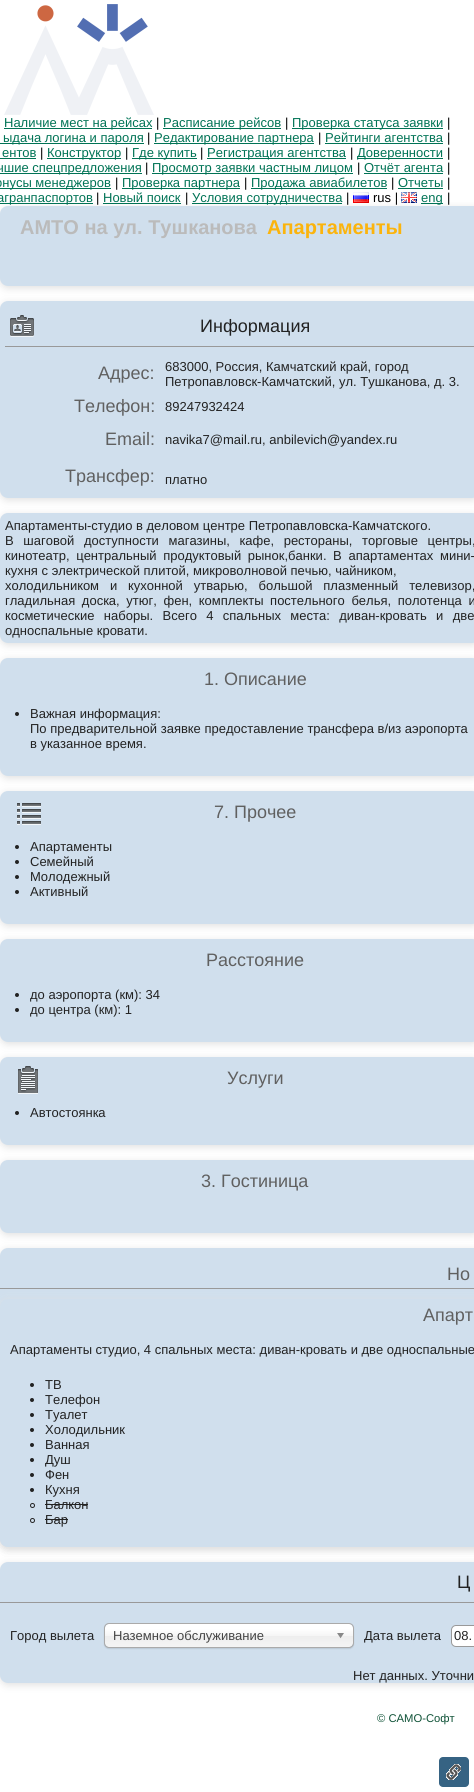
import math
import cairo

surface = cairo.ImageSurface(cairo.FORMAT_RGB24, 474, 1792)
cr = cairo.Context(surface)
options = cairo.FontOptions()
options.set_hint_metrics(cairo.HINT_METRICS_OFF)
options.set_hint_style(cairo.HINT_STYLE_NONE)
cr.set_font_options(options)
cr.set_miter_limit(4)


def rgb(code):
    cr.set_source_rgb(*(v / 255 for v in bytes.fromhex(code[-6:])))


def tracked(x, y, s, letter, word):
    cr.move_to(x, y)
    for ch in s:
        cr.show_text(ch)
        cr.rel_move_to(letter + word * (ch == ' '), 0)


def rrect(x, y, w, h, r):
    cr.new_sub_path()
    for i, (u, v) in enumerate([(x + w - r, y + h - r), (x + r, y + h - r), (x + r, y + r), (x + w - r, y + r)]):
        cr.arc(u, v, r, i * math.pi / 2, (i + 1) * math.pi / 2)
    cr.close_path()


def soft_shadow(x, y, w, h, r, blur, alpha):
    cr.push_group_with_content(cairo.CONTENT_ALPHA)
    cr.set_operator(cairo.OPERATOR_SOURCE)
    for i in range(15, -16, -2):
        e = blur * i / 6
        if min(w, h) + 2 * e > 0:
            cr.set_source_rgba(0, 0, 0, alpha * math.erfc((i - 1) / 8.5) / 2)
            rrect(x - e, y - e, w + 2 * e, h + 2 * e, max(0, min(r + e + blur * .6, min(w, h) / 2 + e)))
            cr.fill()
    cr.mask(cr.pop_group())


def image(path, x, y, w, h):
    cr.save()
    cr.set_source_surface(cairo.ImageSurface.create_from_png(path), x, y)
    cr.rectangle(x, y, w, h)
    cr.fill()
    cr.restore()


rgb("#ffffff")
cr.paint()
image("img/1.png", 4, 4, 150, 111)
for x, y, w, h, color in [
    (4, 128, 148, 1, "#007355"),
    (163, 128, 118, 1, "#007355"),
    (292, 128, 151, 1, "#007355"),
    (0, 143, 144, 1, "#007355"),
    (154, 143, 160, 1, "#007355"),
    (325, 143, 118, 1, "#007355"),
    (0, 158, 36, 1, "#007355"),
    (47, 158, 74, 1, "#007355"),
    (132, 158, 65, 1, "#007355"),
    (207, 158, 139, 1, "#007355"),
    (357, 158, 86, 1, "#007355"),
    (0, 173, 142, 1, "#007355"),
    (152, 173, 201, 1, "#007355"),
    (364, 173, 79, 1, "#007355"),
    (0, 188, 111, 1, "#007355"),
    (122, 188, 118, 1, "#007355"),
    (251, 188, 136, 1, "#007355"),
    (398, 188, 45, 1, "#007355"),
]:
    rgb(color)
    cr.rectangle(x, y, w, h)
    cr.fill()
rgb("#e0e0e0")
soft_shadow(0, 208, 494, 80, 8, 4, 1)
for x, y, w, h, color in [
    (0, 203, 93, 1, "#007355"),
    (103, 203, 78, 1, "#007355"),
    (192, 203, 150, 1, "#007355"),
]:
    rgb(color)
    cr.rectangle(x, y, w, h)
    cr.fill()
image("img/2.png", 353, 192, 16, 11)
image("img/3.png", 401, 192, 16, 11)
cr.rectangle(421, 203, 22, 1)
cr.fill()
rgb("#d0dfed")
rrect(0, 206, 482, 80, 8)
cr.fill()
rgb("#e0e0e0")
soft_shadow(0, 303, 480, 197, 8, 4, 1)
rgb("#d0dfed")
rrect(0, 301, 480, 197, 8)
cr.fill()
rgb("#999999")
cr.rectangle(5, 346, 469, 1)
cr.fill()
image("img/4.png", 10, 315, 24, 22)
rgb("#e0e0e0")
soft_shadow(0, 515, 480, 130, 8, 4, 1)
rgb("#d0dfed")
rrect(0, 513, 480, 130, 8)
cr.fill()
rgb("#e0e0e0")
soft_shadow(0, 660, 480, 118, 8, 4, 1)
rgb("#d0dfed")
rrect(0, 658, 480, 118, 8)
cr.fill()
rgb("#222222")
cr.arc(17, 714, 2, 0, 2 * math.pi)
cr.fill()
rgb("#e0e0e0")
soft_shadow(0, 793, 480, 133, 8, 4, 1)
rgb("#d0dfed")
rrect(0, 791, 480, 133, 8)
cr.fill()
image("img/5.png", 17, 803, 24, 22)
rgb("#222222")
cr.arc(17, 847, 2, 0, 2 * math.pi)
cr.fill()
cr.arc(17, 862, 2, 0, 2 * math.pi)
cr.fill()
cr.arc(17, 877, 2, 0, 2 * math.pi)
cr.fill()
cr.arc(17, 892, 2, 0, 2 * math.pi)
cr.fill()
rgb("#e0e0e0")
soft_shadow(0, 941, 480, 103, 8, 4, 1)
rgb("#d0dfed")
rrect(0, 939, 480, 103, 8)
cr.fill()
rgb("#222222")
cr.arc(17, 995, 2, 0, 2 * math.pi)
cr.fill()
cr.arc(17, 1010, 2, 0, 2 * math.pi)
cr.fill()
rgb("#e0e0e0")
soft_shadow(0, 1059, 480, 88, 8, 4, 1)
rgb("#d0dfed")
rrect(0, 1057, 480, 88, 8)
cr.fill()
image("img/6.png", 18, 1066, 20, 28)
rgb("#222222")
cr.arc(17, 1113, 2, 0, 2 * math.pi)
cr.fill()
rgb("#e0e0e0")
soft_shadow(0, 1162, 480, 73, 8, 4, 1)
rgb("#d0dfed")
rrect(0, 1160, 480, 73, 8)
cr.fill()
rgb("#e0e0e0")
soft_shadow(0, 1250, 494, 299, 8, 4, 1)
rgb("#d0dfed")
rrect(0, 1248, 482, 299, 8)
cr.fill()
rgb("#999999")
cr.rectangle(0, 1288, 474, 1)
cr.fill()
rgb("#e0e0e0")
soft_shadow(0, 1301, 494, 248, 8, 4, 1)
rgb("#d0dfed")
rrect(0, 1299, 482, 248, 8)
cr.fill()
rgb("#222222")
cr.arc(32, 1385, 2, 0, 2 * math.pi)
cr.fill()
cr.arc(32, 1400, 2, 0, 2 * math.pi)
cr.fill()
cr.arc(32, 1415, 2, 0, 2 * math.pi)
cr.fill()
cr.arc(32, 1430, 2, 0, 2 * math.pi)
cr.fill()
cr.arc(32, 1445, 2, 0, 2 * math.pi)
cr.fill()
cr.arc(32, 1460, 2, 0, 2 * math.pi)
cr.fill()
cr.arc(32, 1475, 2, 0, 2 * math.pi)
cr.fill()
cr.arc(32, 1490, 2, 0, 2 * math.pi)
cr.fill()
cr.arc(32.5, 1505.5, 2, 0, 2 * math.pi)
cr.set_line_width(1)
cr.stroke()
cr.rectangle(45, 1504, 43, 1)
cr.fill()
cr.arc(32.5, 1520.5, 2, 0, 2 * math.pi)
cr.stroke()
cr.rectangle(45, 1519, 23, 1)
cr.fill()
rgb("#e0e0e0")
soft_shadow(0, 1564, 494, 121, 8, 4, 1)
rgb("#d0dfed")
rrect(0, 1562, 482, 121, 8)
cr.fill()
rgb("#999999")
cr.rectangle(0, 1602, 474, 1)
cr.fill()
rgb("#000000")
soft_shadow(104, 1624, 250, 25, 5, 0.5, 0.1)
gradient = cairo.LinearGradient(229, 1624, 229, 1647)
gradient.add_color_stop_rgba(0.2, 1, 1, 1, 1)
gradient.add_color_stop_rgba(0.5, 0.965, 0.965, 0.965, 1)
gradient.add_color_stop_rgba(0.52, 0.933, 0.933, 0.933, 1)
gradient.add_color_stop_rgba(1, 0.957, 0.957, 0.957, 1)
cr.set_source(gradient)
rrect(105, 1624, 248, 23, 4)
cr.fill()
rrect(104.5, 1623.5, 249, 24, 4.5)
rgb("#aaaaaa")
cr.stroke()
image("img/7.png", 337, 1633, 7, 6)
rgb("#ffffff")
rrect(451.5, 1625.5, 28, 21, 4.5)
cr.fill_preserve()
rgb("#999999")
cr.stroke()
rgb("#366383")
rrect(439, 1757, 30, 30, 4)
cr.fill()
image("img/8.png", 446, 1764, 15, 16)
cr.select_font_face("Liberation Sans")
cr.set_font_size(13)
rgb("#007355")
cr.move_to(4, 127)
cr.show_text("Наличие мест на рейсах")
rgb("#000000")
cr.move_to(156, 127)
cr.show_text("|")
rgb("#007355")
cr.move_to(163, 127)
cr.show_text("Расписание рейсов")
rgb("#000000")
cr.move_to(285, 127)
cr.show_text("|")
rgb("#007355")
cr.move_to(292, 127)
cr.show_text("Проверка статуса заявки")
rgb("#000000")
cr.move_to(447, 127)
cr.show_text("|")
rgb("#007355")
cr.move_to(3, 142)
cr.show_text("ыдача логина и пароля")
rgb("#000000")
cr.move_to(147, 142)
cr.show_text("|")
rgb("#007355")
cr.move_to(154, 142)
cr.show_text("Редактирование партнера")
rgb("#000000")
cr.move_to(318, 142)
cr.show_text("|")
rgb("#007355")
cr.move_to(325, 142)
cr.show_text("Рейтинги агентства")
rgb("#000000")
cr.move_to(447, 142)
cr.show_text("|")
rgb("#007355")
cr.move_to(2, 157)
cr.show_text("ентов")
rgb("#000000")
cr.move_to(40, 157)
cr.show_text("|")
rgb("#007355")
cr.move_to(47, 157)
cr.show_text("Конструктор")
rgb("#000000")
cr.move_to(125, 157)
cr.show_text("|")
rgb("#007355")
cr.move_to(132, 157)
cr.show_text("Где купить")
rgb("#000000")
cr.move_to(200, 157)
cr.show_text("|")
rgb("#007355")
cr.move_to(207, 157)
cr.show_text("Регистрация агентства")
rgb("#000000")
cr.move_to(350, 157)
cr.show_text("|")
rgb("#007355")
cr.move_to(357, 157)
cr.show_text("Доверенности")
rgb("#000000")
cr.move_to(447, 157)
cr.show_text("|")
rgb("#007355")
cr.move_to(-3, 172)
cr.show_text("чшие спецпредложения")
rgb("#000000")
cr.move_to(145, 172)
cr.show_text("|")
rgb("#007355")
cr.move_to(152, 172)
cr.show_text("Просмотр заявки частным лицом")
rgb("#000000")
cr.move_to(357, 172)
cr.show_text("|")
rgb("#007355")
cr.move_to(364, 172)
cr.show_text("Отчёт агента")
rgb("#000000")
cr.move_to(447, 172)
cr.show_text("|")
rgb("#007355")
cr.move_to(-5, 187)
cr.show_text("онусы менеджеров")
rgb("#000000")
cr.move_to(115, 187)
cr.show_text("|")
rgb("#007355")
cr.move_to(122, 187)
cr.show_text("Проверка партнера")
rgb("#000000")
cr.move_to(244, 187)
cr.show_text("|")
rgb("#007355")
cr.move_to(251, 187)
cr.show_text("Продажа авиабилетов")
rgb("#000000")
cr.move_to(391, 187)
cr.show_text("|")
rgb("#007355")
cr.move_to(398, 187)
cr.show_text("Отчеты")
rgb("#000000")
cr.move_to(447, 187)
cr.show_text("|")
rgb("#007355")
cr.move_to(-3, 202)
cr.show_text("агранпаспортов")
rgb("#000000")
cr.move_to(96, 202)
cr.show_text("|")
rgb("#007355")
cr.move_to(103, 202)
cr.show_text("Новый поиск")
rgb("#000000")
cr.move_to(185, 202)
cr.show_text("|")
rgb("#007355")
cr.move_to(192, 202)
cr.show_text("Условия сотрудничества")
rgb("#000000")
cr.move_to(346, 202)
cr.show_text("|")
cr.move_to(373, 202)
cr.show_text("rus |")
rgb("#007355")
cr.move_to(421, 202)
cr.show_text("eng")
rgb("#000000")
cr.move_to(447, 202)
cr.show_text("|")
cr.select_font_face("Liberation Sans", cairo.FONT_SLANT_NORMAL, cairo.FONT_WEIGHT_BOLD)
cr.set_font_size(20)
rgb("#bbbbbb")
cr.move_to(20, 234)
cr.show_text("АМТО на ул. Тушканова")
rgb("#fbb40d")
cr.move_to(267, 234)
cr.show_text("Апартаменты")
cr.select_font_face("Liberation Sans")
cr.set_font_size(18)
rgb("#222222")
cr.move_to(200, 332)
cr.show_text("Информация")
rgb("#606060")
cr.move_to(98, 379)
cr.show_text("Адрес:")
cr.set_font_size(13)
rgb("#222222")
cr.move_to(165, 371)
cr.show_text("683000, Россия, Камчатский край, город")
cr.move_to(165, 386)
cr.show_text("Петропавловск-Камчатский, ул. Тушканова, д. 3.")
cr.set_font_size(18)
rgb("#606060")
cr.move_to(74, 412)
cr.show_text("Телефон:")
cr.set_font_size(13)
rgb("#222222")
cr.move_to(165, 411)
cr.show_text("89247932424")
cr.set_font_size(18)
rgb("#606060")
cr.move_to(105, 445)
cr.show_text("Email:")
cr.set_font_size(13)
rgb("#222222")
cr.move_to(165, 444)
cr.show_text("navika7@mail.ru, anbilevich@yandex.ru")
cr.set_font_size(18)
rgb("#606060")
cr.move_to(65, 482)
cr.show_text("Трансфер:")
cr.set_font_size(13)
rgb("#222222")
cr.move_to(165, 484)
cr.show_text("платно")
cr.move_to(5, 530)
cr.show_text("Апартаменты-студио в деловом центре Петропавловска-Камчатского.")
tracked(5, 545, "В шаговой доступности магазины, кафе, рестораны, торговые центры,", 0, 6)
tracked(5, 560, "кинотеатр, центральный продуктовый рынок,банки. В апартаментах мини-", 0, 3)
cr.move_to(5, 575)
cr.show_text("кухня с электрической плитой, микроволновой печью, чайником,")
tracked(5, 590, "холодильником и кухонной утварью, большой плазменный телевизор,", 0, 7.25)
tracked(5, 605, "гладильная доска, утюг, фен, комплекты постельного белья, полотенца и", 0, 3)
tracked(5, 620, "косметические наборы. Всего 4 спальных места: диван-кровать и две", 0, 5.75)
cr.move_to(5, 635)
cr.show_text("односпальные кровати.")
cr.set_font_size(18)
rgb("#606060")
cr.move_to(204, 685)
cr.show_text("1. Описание")
cr.set_font_size(13)
rgb("#222222")
for x, y, s in [
    (30, 718, "Важная информация:"),
    (30, 733, "По предварительной заявке предоставление трансфера в/из аэропорта"),
    (30, 748, "в указанное время."),
]:
    cr.move_to(x, y)
    cr.show_text(s)
cr.set_font_size(18)
rgb("#606060")
cr.move_to(214, 818)
cr.show_text("7. Прочее")
cr.set_font_size(13)
rgb("#222222")
for x, y, s in [
    (30, 851, "Апартаменты"),
    (30, 866, "Семейный"),
    (30, 881, "Молодежный"),
    (30, 896, "Активный"),
]:
    cr.move_to(x, y)
    cr.show_text(s)
cr.set_font_size(18)
rgb("#606060")
cr.move_to(206, 966)
cr.show_text("Расстояние")
cr.set_font_size(13)
rgb("#222222")
cr.move_to(30, 999)
cr.show_text("до аэропорта (км): 34")
cr.move_to(30, 1014)
cr.show_text("до центра (км): 1")
cr.set_font_size(18)
rgb("#606060")
cr.move_to(227, 1084)
cr.show_text("Услуги")
cr.set_font_size(13)
rgb("#222222")
cr.move_to(30, 1117)
cr.show_text("Автостоянка")
cr.set_font_size(18)
rgb("#606060")
for x, y, s in [
    (201, 1187, "3. Гостиница"),
    (447, 1280, "Но"),
    (423, 1321, "Апарт"),
]:
    cr.move_to(x, y)
    cr.show_text(s)
cr.set_font_size(13)
rgb("#222222")
for x, y, s in [
    (10, 1354, "Апартаменты студио, 4 спальных места: диван-кровать и две односпальные"),
    (45, 1389, "ТВ"),
    (45, 1404, "Телефон"),
    (45, 1419, "Туалет"),
    (45, 1434, "Холодильник"),
    (45, 1449, "Ванная"),
    (45, 1464, "Душ"),
    (45, 1479, "Фен"),
    (45, 1494, "Кухня"),
    (45, 1509, "Балкон"),
    (45, 1524, "Бар"),
]:
    cr.move_to(x, y)
    cr.show_text(s)
cr.set_font_size(18)
cr.move_to(457, 1588)
cr.show_text("Ц")
cr.set_font_size(13)
cr.move_to(10, 1640)
cr.show_text("Город вылета")
rgb("#444444")
cr.move_to(113, 1640)
cr.show_text("Наземное обслуживание")
rgb("#222222")
for x, y, s in [
    (364, 1640, "Дата вылета"),
    (454, 1640, "08."),
    (353, 1680, "Нет данных. Уточни"),
]:
    cr.move_to(x, y)
    cr.show_text(s)
cr.set_font_size(11.25)
rgb("#0f5237")
cr.move_to(377, 1722)
cr.show_text("© САМО-Софт")
surface.write_to_png("page.png")
